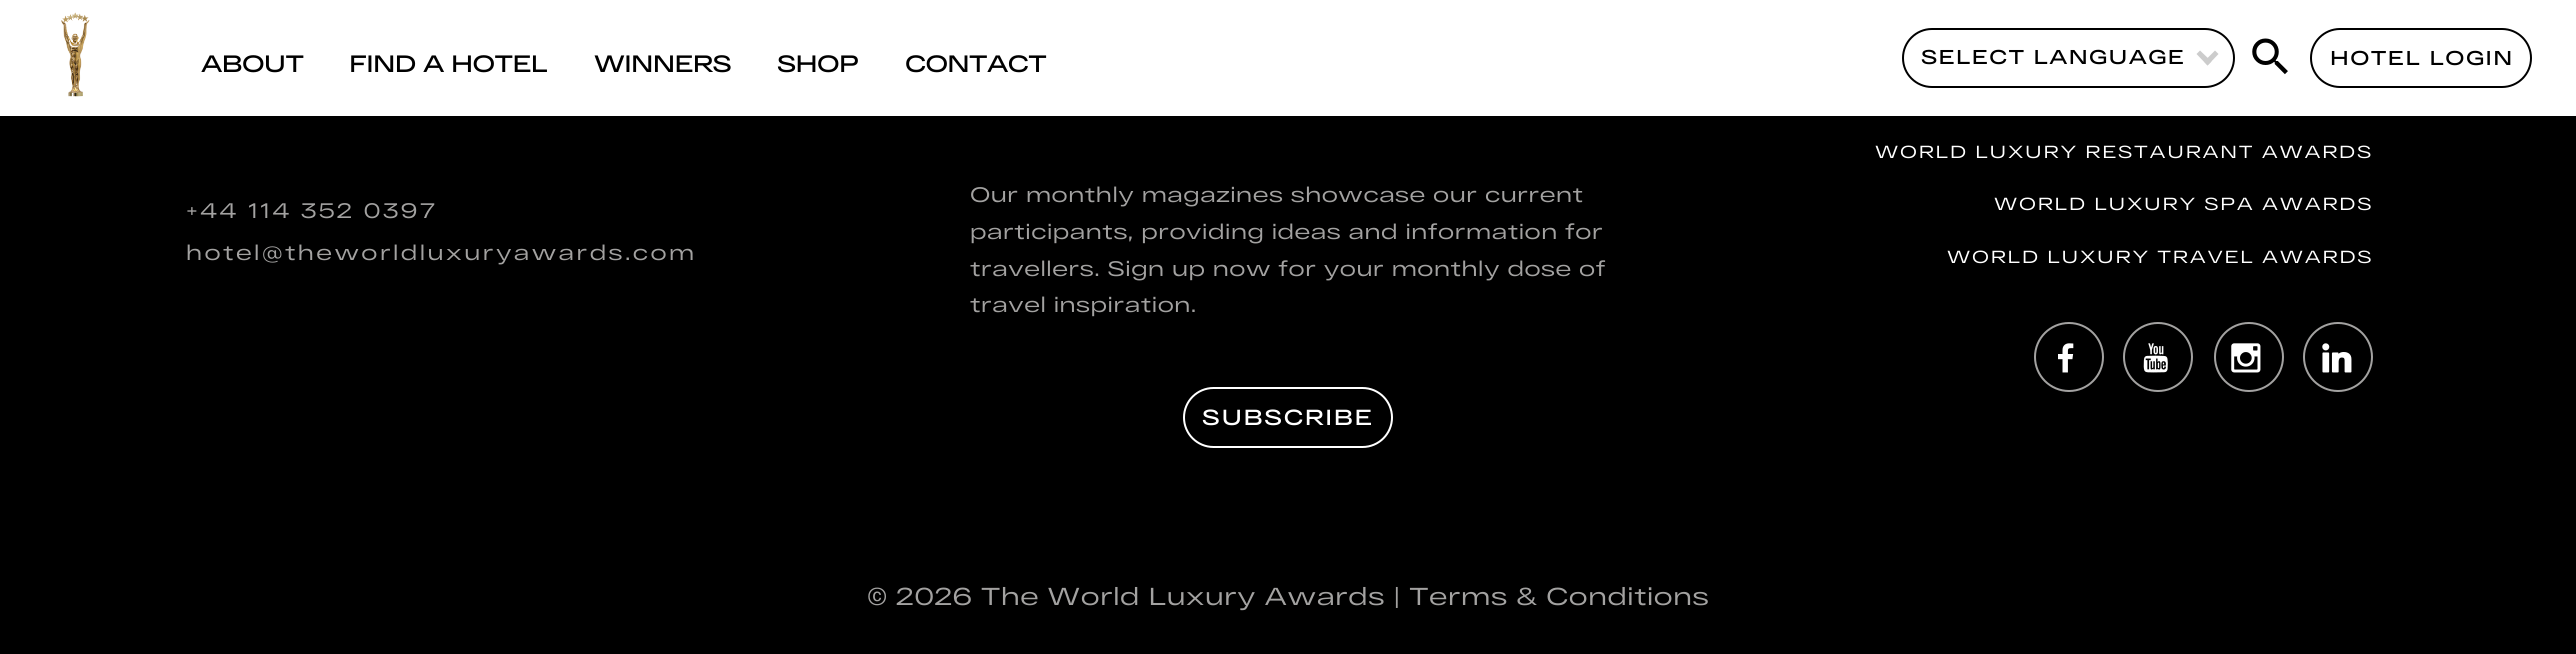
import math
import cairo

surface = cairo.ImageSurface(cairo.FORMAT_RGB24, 2576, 654)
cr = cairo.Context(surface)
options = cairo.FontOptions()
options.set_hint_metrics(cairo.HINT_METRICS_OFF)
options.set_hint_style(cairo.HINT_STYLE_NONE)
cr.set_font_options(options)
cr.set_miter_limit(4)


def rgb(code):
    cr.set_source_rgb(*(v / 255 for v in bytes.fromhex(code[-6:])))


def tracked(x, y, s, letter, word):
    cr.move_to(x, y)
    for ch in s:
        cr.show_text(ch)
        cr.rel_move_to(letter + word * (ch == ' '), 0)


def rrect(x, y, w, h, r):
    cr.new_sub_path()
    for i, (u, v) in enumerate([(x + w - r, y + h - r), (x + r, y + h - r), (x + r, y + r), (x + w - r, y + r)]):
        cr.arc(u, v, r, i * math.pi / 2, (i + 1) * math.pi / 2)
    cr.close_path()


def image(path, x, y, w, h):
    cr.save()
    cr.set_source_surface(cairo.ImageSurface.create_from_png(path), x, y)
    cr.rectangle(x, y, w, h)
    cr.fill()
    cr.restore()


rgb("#000000")
cr.paint()
rgb("#ffffff")
cr.rectangle(0, 0, 2576, 116)
cr.fill()
image("img/1.png", 61, 12, 29, 85)
rrect(1903, 29, 331, 58, 29)
rgb("#000000")
cr.stroke()
rgb("#cccccc")
cr.new_path()
cr.move_to(2215, 50.5)
cr.line_to(2218.5, 54)
cr.line_to(2207.5, 65.5)
cr.line_to(2204, 61.5)
cr.close_path()
cr.fill()
cr.new_path()
cr.move_to(2200, 50.5)
cr.line_to(2211.5, 61.5)
cr.line_to(2207.5, 65.5)
cr.line_to(2196.5, 54)
cr.close_path()
cr.fill()
image("img/2.png", 2252, 38, 36, 37)
rrect(2311, 29, 220, 58, 29)
rgb("#000000")
cr.stroke()
rrect(1184, 388, 208, 59, 29.5)
rgb("#ffffff")
cr.stroke()
cr.arc(2069, 357, 34, 0, 2 * math.pi)
rgb("#a3a2a1")
cr.stroke()
image("img/3.png", 2058, 343, 16, 30)
cr.arc(2158, 357, 34, 0, 2 * math.pi)
cr.stroke()
image("img/4.png", 2143, 343, 25, 30)
cr.arc(2249, 357, 34, 0, 2 * math.pi)
cr.stroke()
image("img/5.png", 2231, 343, 30, 30)
cr.arc(2338, 357, 34, 0, 2 * math.pi)
cr.stroke()
image("img/6.png", 2322, 343, 30, 30)
cr.select_font_face("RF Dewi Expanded", cairo.FONT_SLANT_NORMAL, cairo.FONT_WEIGHT_BOLD)
cr.set_font_size(22.75)
rgb("#000000")
for x, y, s in [
    (201, 72, "ABOUT"),
    (349, 72, "FIND A HOTEL"),
    (594, 72, "WINNERS"),
    (777, 72, "SHOP"),
    (905, 72, "CONTACT"),
]:
    cr.move_to(x, y)
    cr.show_text(s)
cr.set_font_size(19.25)
tracked(1921, 64, "SELECT LANGUAGE", 1.9, 0)
tracked(2330, 65, "HOTEL LOGIN", 2, 0)
cr.select_font_face("RF Dewi Expanded")
cr.set_font_size(21)
rgb("#a3a2a1")
tracked(186, 218, "+44 114 352 0397", 2.45, 0)
tracked(186, 260, "hotel@theworldluxuryawards.com", 2.45, 0)
for x, y, s in [
    (970, 202, "Our monthly magazines showcase our current"),
    (970, 239, "participants, providing ideas and information for"),
    (970, 276, "travellers. Sign up now for your monthly dose of"),
    (970, 312, "travel inspiration."),
]:
    tracked(x, y, s, 0.55, 0)
cr.select_font_face("RF Dewi Expanded", cairo.FONT_SLANT_NORMAL, cairo.FONT_WEIGHT_BOLD)
rgb("#ffffff")
tracked(1202, 425, "SUBSCRIBE", 2.25, 0)
cr.select_font_face("RF Dewi Expanded")
cr.set_font_size(17.5)
for x, y, s in [
    (1875, 158, "WORLD LUXURY RESTAURANT AWARDS"),
    (1994, 210, "WORLD LUXURY SPA AWARDS"),
    (1947, 263, "WORLD LUXURY TRAVEL AWARDS"),
]:
    tracked(x, y, s, 1.75, 0)
cr.set_font_size(24.5)
rgb("#a3a2a1")
tracked(867, 605, "© 2026 The World Luxury Awards | Terms & Conditions", 0.6, 0)
surface.write_to_png("page.png")
